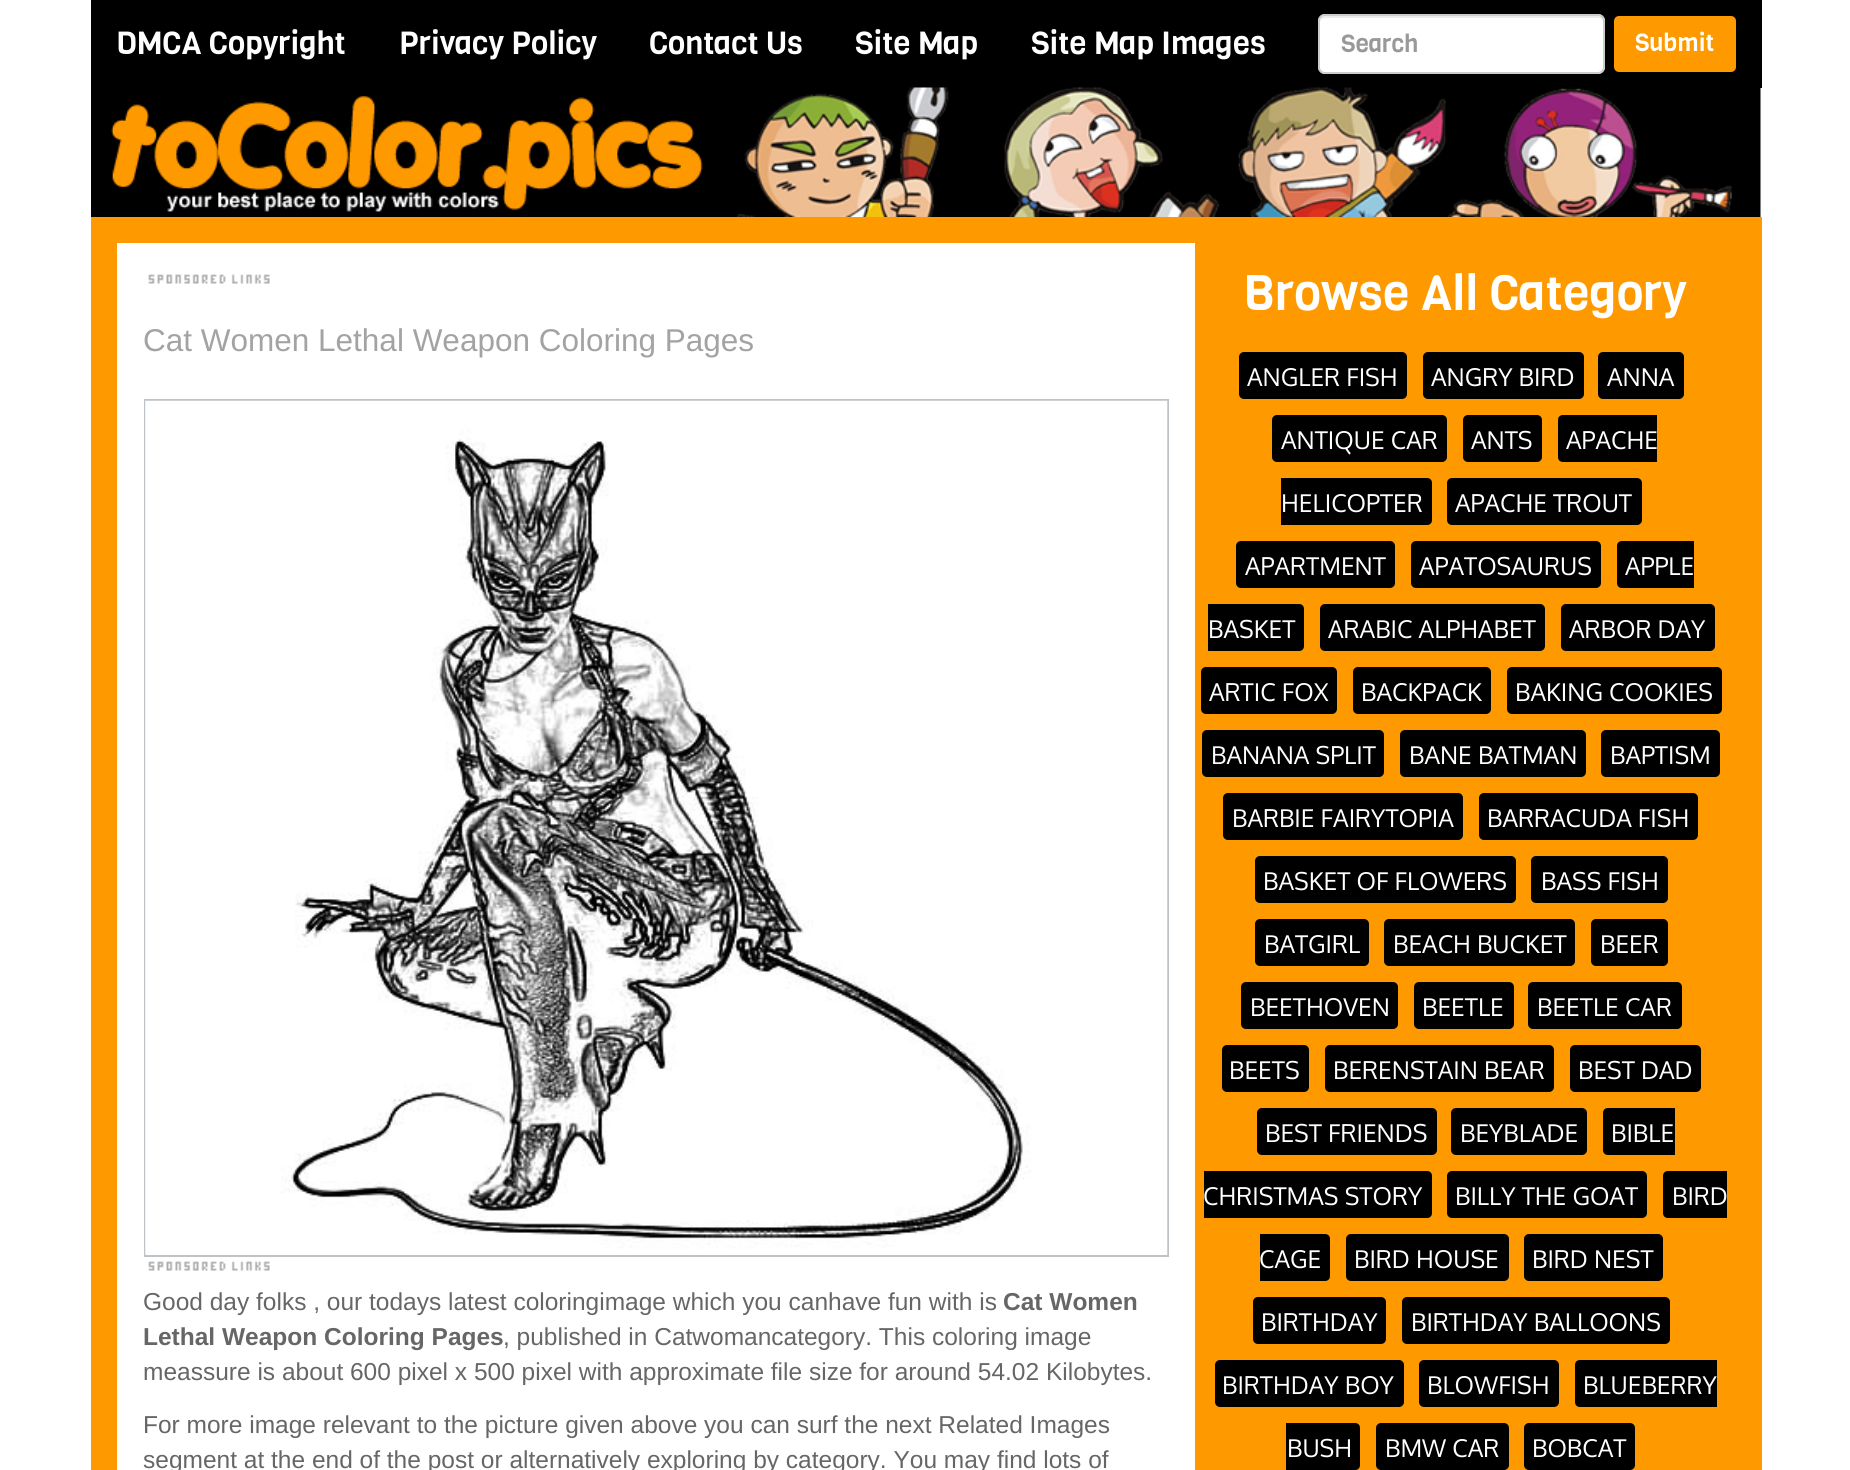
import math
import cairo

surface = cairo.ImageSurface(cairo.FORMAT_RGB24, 1850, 1470)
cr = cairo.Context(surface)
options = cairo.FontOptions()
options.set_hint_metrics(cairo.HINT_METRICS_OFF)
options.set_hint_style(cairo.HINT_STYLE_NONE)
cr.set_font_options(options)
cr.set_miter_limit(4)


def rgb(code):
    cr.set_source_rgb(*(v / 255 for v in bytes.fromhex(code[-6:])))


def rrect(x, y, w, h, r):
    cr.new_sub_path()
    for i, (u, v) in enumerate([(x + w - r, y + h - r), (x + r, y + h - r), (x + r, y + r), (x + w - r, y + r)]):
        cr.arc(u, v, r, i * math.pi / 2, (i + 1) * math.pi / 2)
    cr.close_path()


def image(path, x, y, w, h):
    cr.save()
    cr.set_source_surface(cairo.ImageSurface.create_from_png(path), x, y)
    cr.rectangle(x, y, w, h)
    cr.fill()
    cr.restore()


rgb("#ffffff")
cr.paint()
rgb("#000000")
cr.rectangle(91, 0, 1671, 88)
cr.fill()
rgb("#ffffff")
rrect(1318, 14, 287, 60, 7)
cr.fill()
rgb("#ececec")
cr.new_path()
cr.move_to(1325, 18)
cr.line_to(1598, 18)
cr.curve_to(1601, 18, 1603, 20, 1603, 23)
cr.line_to(1603, 21)
cr.curve_to(1603, 18, 1601, 16, 1598, 16)
cr.line_to(1325, 16)
cr.curve_to(1322, 16, 1320, 18, 1320, 21)
cr.line_to(1320, 23)
cr.curve_to(1320, 20, 1322, 18, 1325, 18)
cr.close_path()
cr.fill()
rrect(1319, 15, 285, 58, 6)
rgb("#cccccc")
cr.stroke()
rgb("#ff9900")
rrect(1613, 15, 124, 58, 6)
cr.fill_preserve()
rgb("#000000")
cr.stroke()
image("img/1.png", 91, 87, 1670, 130)
rgb("#ff9900")
cr.rectangle(91, 217, 1671, 1253)
cr.fill()
rgb("#ffffff")
cr.rectangle(117, 243, 1078, 1227)
cr.fill()
image("img/2.png", 148, 274, 122, 10)
cr.rectangle(145, 400, 1023, 856)
rgb("#bdc3c7")
cr.stroke()
image("img/3.png", 145, 400, 1023, 855)
image("img/2.png", 148, 1261, 122, 10)
rgb("#000000")
rrect(1239, 352, 168, 47, 5)
cr.fill()
rrect(1423, 352, 161, 47, 5)
cr.fill()
rrect(1598, 352, 86, 47, 5)
cr.fill()
rrect(1272, 415, 175, 47, 5)
cr.fill()
rrect(1463, 415, 79, 47, 5)
cr.fill()
cr.new_path()
cr.move_to(1563, 415)
cr.line_to(1657, 415)
cr.line_to(1657, 462)
cr.line_to(1563, 462)
cr.curve_to(1560, 462, 1558, 460, 1558, 457)
cr.line_to(1558, 420)
cr.curve_to(1558, 417, 1560, 415, 1563, 415)
cr.close_path()
cr.fill()
cr.new_path()
cr.move_to(1281, 478)
cr.line_to(1427, 478)
cr.curve_to(1430, 478, 1432, 480, 1432, 483)
cr.line_to(1432, 520)
cr.curve_to(1432, 523, 1430, 525, 1427, 525)
cr.line_to(1281, 525)
cr.close_path()
cr.fill()
rrect(1447, 478, 195, 47, 5)
cr.fill()
rrect(1236, 541, 159, 47, 5)
cr.fill()
rrect(1411, 541, 190, 47, 5)
cr.fill()
cr.new_path()
cr.move_to(1622, 541)
cr.line_to(1694, 541)
cr.line_to(1694, 588)
cr.line_to(1622, 588)
cr.curve_to(1619, 588, 1617, 586, 1617, 583)
cr.line_to(1617, 546)
cr.curve_to(1617, 543, 1619, 541, 1622, 541)
cr.close_path()
cr.fill()
cr.new_path()
cr.move_to(1208, 604)
cr.line_to(1299, 604)
cr.curve_to(1302, 604, 1304, 606, 1304, 609)
cr.line_to(1304, 646)
cr.curve_to(1304, 649, 1302, 651, 1299, 651)
cr.line_to(1208, 651)
cr.close_path()
cr.fill()
rrect(1320, 604, 225, 47, 5)
cr.fill()
rrect(1561, 604, 154, 47, 5)
cr.fill()
rrect(1201, 667, 136, 47, 5)
cr.fill()
rrect(1353, 667, 138, 47, 5)
cr.fill()
rrect(1507, 667, 215, 47, 5)
cr.fill()
rrect(1202, 730, 182, 47, 5)
cr.fill()
rrect(1400, 730, 186, 47, 5)
cr.fill()
rrect(1601, 730, 119, 47, 5)
cr.fill()
rrect(1223, 793, 240, 47, 5)
cr.fill()
rrect(1479, 793, 219, 47, 5)
cr.fill()
rrect(1255, 856, 261, 47, 5)
cr.fill()
rrect(1531, 856, 137, 47, 5)
cr.fill()
rrect(1255, 919, 114, 47, 5)
cr.fill()
rrect(1384, 919, 191, 47, 5)
cr.fill()
rrect(1591, 919, 77, 47, 5)
cr.fill()
rrect(1241, 982, 157, 47, 5)
cr.fill()
rrect(1414, 982, 100, 47, 5)
cr.fill()
rrect(1528, 982, 154, 47, 5)
cr.fill()
rrect(1222, 1045, 87, 47, 5)
cr.fill()
rrect(1325, 1045, 229, 47, 5)
cr.fill()
rrect(1570, 1045, 131, 47, 5)
cr.fill()
rrect(1257, 1108, 180, 47, 5)
cr.fill()
rrect(1451, 1108, 136, 47, 5)
cr.fill()
cr.new_path()
cr.move_to(1608, 1108)
cr.line_to(1675, 1108)
cr.line_to(1675, 1155)
cr.line_to(1608, 1155)
cr.curve_to(1605, 1155, 1603, 1153, 1603, 1150)
cr.line_to(1603, 1113)
cr.curve_to(1603, 1110, 1605, 1108, 1608, 1108)
cr.close_path()
cr.fill()
cr.new_path()
cr.move_to(1204, 1171)
cr.line_to(1427, 1171)
cr.curve_to(1430, 1171, 1432, 1173, 1432, 1176)
cr.line_to(1432, 1213)
cr.curve_to(1432, 1216, 1430, 1218, 1427, 1218)
cr.line_to(1204, 1218)
cr.close_path()
cr.fill()
rrect(1447, 1171, 200, 47, 5)
cr.fill()
cr.new_path()
cr.move_to(1668, 1171)
cr.line_to(1727, 1171)
cr.line_to(1727, 1218)
cr.line_to(1668, 1218)
cr.curve_to(1665, 1218, 1663, 1216, 1663, 1213)
cr.line_to(1663, 1176)
cr.curve_to(1663, 1173, 1665, 1171, 1668, 1171)
cr.close_path()
cr.fill()
cr.new_path()
cr.move_to(1260, 1234)
cr.line_to(1325, 1234)
cr.curve_to(1328, 1234, 1330, 1236, 1330, 1239)
cr.line_to(1330, 1276)
cr.curve_to(1330, 1279, 1328, 1281, 1325, 1281)
cr.line_to(1260, 1281)
cr.close_path()
cr.fill()
rrect(1346, 1234, 163, 47, 5)
cr.fill()
rrect(1524, 1234, 139, 47, 5)
cr.fill()
rrect(1253, 1297, 133, 47, 5)
cr.fill()
rrect(1402, 1297, 268, 47, 5)
cr.fill()
rrect(1215, 1360, 189, 47, 5)
cr.fill()
rrect(1419, 1360, 140, 47, 5)
cr.fill()
cr.new_path()
cr.move_to(1580, 1360)
cr.line_to(1717, 1360)
cr.line_to(1717, 1407)
cr.line_to(1580, 1407)
cr.curve_to(1577, 1407, 1575, 1405, 1575, 1402)
cr.line_to(1575, 1365)
cr.curve_to(1575, 1362, 1577, 1360, 1580, 1360)
cr.close_path()
cr.fill()
cr.new_path()
cr.move_to(1286, 1423)
cr.line_to(1355, 1423)
cr.curve_to(1358, 1423, 1360, 1425, 1360, 1428)
cr.line_to(1360, 1465)
cr.curve_to(1360, 1468, 1358, 1470, 1355, 1470)
cr.line_to(1286, 1470)
cr.close_path()
cr.fill()
rrect(1376, 1423, 133, 47, 5)
cr.fill()
rrect(1524, 1423, 111, 47, 5)
cr.fill()
cr.select_font_face("Viga")
cr.set_font_size(31.5)
rgb("#ffffff")
for x, y, s in [
    (116, 54, "DMCA Copyright"),
    (399, 54, "Privacy Policy"),
    (649, 54, "Contact Us"),
    (855, 54, "Site Map"),
    (1031, 54, "Site Map Images"),
]:
    cr.move_to(x, y)
    cr.show_text(s)
cr.set_font_size(24.5)
rgb("#999999")
cr.move_to(1341, 52)
cr.show_text("Search")
rgb("#ffffff")
cr.move_to(1635, 51)
cr.show_text("Submit")
cr.select_font_face("Liberation Sans")
cr.set_font_size(31.5)
rgb("#a3a3a3")
cr.move_to(143, 351)
cr.show_text("Cat Women Lethal Weapon Coloring Pages")
cr.set_font_size(24.5)
rgb("#666666")
cr.move_to(143, 1310)
cr.show_text("Good day folks , our todays latest coloringimage which you canhave fun with is")
cr.select_font_face("Liberation Sans", cairo.FONT_SLANT_NORMAL, cairo.FONT_WEIGHT_BOLD)
cr.move_to(1003, 1310)
cr.show_text("Cat Women")
cr.move_to(143, 1345)
cr.show_text("Lethal Weapon Coloring Pages")
cr.select_font_face("Liberation Sans")
for x, y, s in [
    (503, 1345, ", published in Catwomancategory. This coloring image"),
    (143, 1380, "meassure is about 600 pixel x 500 pixel with approximate file size for around 54.02 Kilobytes."),
    (143, 1433, "For more image relevant to the picture given above you can surf the next Related Images"),
    (143, 1468, "segment at the end of the post or alternatively exploring by category. You may find lots of"),
]:
    cr.move_to(x, y)
    cr.show_text(s)
cr.select_font_face("Viga")
cr.set_font_size(49)
rgb("#ffffff")
cr.move_to(1243, 310)
cr.show_text("Browse All Category")
cr.select_font_face("Oxygen")
cr.set_font_size(24.5)
for x, y, s in [
    (1247, 386, "ANGLER FISH"),
    (1431, 386, "ANGRY BIRD"),
    (1607, 386, "ANNA"),
    (1281, 449, "ANTIQUE CAR"),
    (1471, 449, "ANTS"),
    (1566, 449, "APACHE"),
    (1281, 512, "HELICOPTER"),
    (1455, 512, "APACHE TROUT"),
    (1245, 575, "APARTMENT"),
    (1419, 575, "APATOSAURUS"),
    (1625, 575, "APPLE"),
    (1208, 638, "BASKET"),
    (1328, 638, "ARABIC ALPHABET"),
    (1569, 638, "ARBOR DAY"),
    (1209, 701, "ARTIC FOX"),
    (1361, 701, "BACKPACK"),
    (1515, 701, "BAKING COOKIES"),
    (1211, 764, "BANANA SPLIT"),
    (1409, 764, "BANE BATMAN"),
    (1610, 764, "BAPTISM"),
    (1232, 827, "BARBIE FAIRYTOPIA"),
    (1487, 827, "BARRACUDA FISH"),
    (1263, 890, "BASKET OF FLOWERS"),
    (1541, 890, "BASS FISH"),
    (1264, 953, "BATGIRL"),
    (1393, 953, "BEACH BUCKET"),
    (1600, 953, "BEER"),
    (1250, 1016, "BEETHOVEN"),
    (1422, 1016, "BEETLE"),
    (1537, 1016, "BEETLE CAR"),
    (1229, 1079, "BEETS"),
    (1333, 1079, "BERENSTAIN BEAR"),
    (1578, 1079, "BEST DAD"),
    (1265, 1142, "BEST FRIENDS"),
    (1460, 1142, "BEYBLADE"),
    (1611, 1142, "BIBLE"),
    (1203, 1205, "CHRISTMAS STORY"),
    (1455, 1205, "BILLY THE GOAT"),
    (1672, 1205, "BIRD"),
    (1259, 1268, "CAGE"),
    (1354, 1268, "BIRD HOUSE"),
    (1532, 1268, "BIRD NEST"),
    (1261, 1331, "BIRTHDAY"),
    (1411, 1331, "BIRTHDAY BALLOONS"),
    (1222, 1394, "BIRTHDAY BOY"),
    (1427, 1394, "BLOWFISH"),
    (1583, 1394, "BLUEBERRY"),
    (1287, 1457, "BUSH"),
    (1385, 1457, "BMW CAR"),
    (1532, 1457, "BOBCAT"),
]:
    cr.move_to(x, y)
    cr.show_text(s)
surface.write_to_png("page.png")
